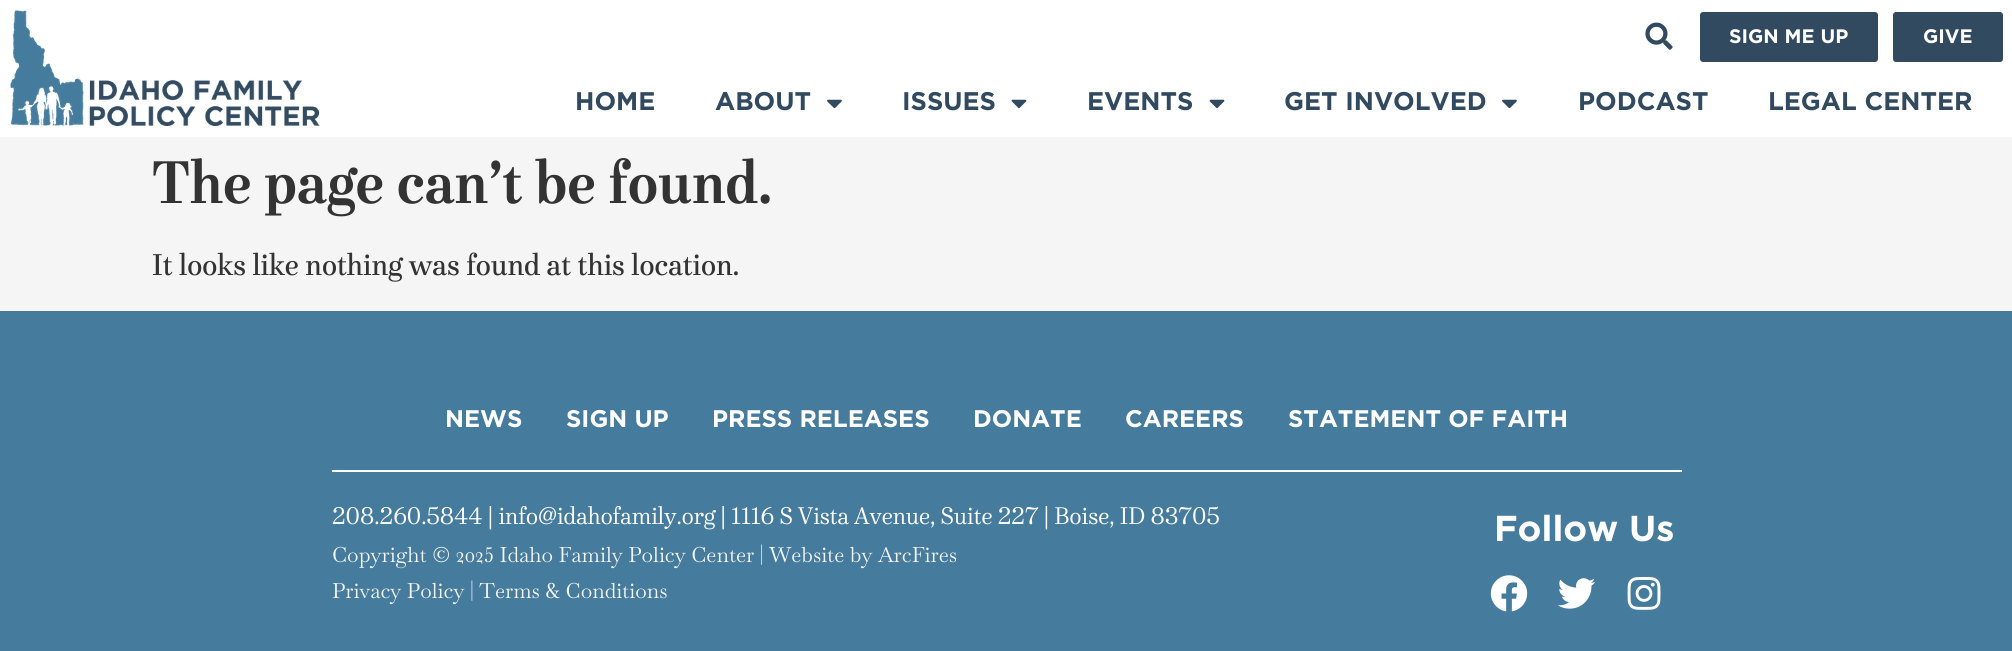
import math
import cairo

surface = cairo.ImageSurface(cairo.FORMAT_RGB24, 2012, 651)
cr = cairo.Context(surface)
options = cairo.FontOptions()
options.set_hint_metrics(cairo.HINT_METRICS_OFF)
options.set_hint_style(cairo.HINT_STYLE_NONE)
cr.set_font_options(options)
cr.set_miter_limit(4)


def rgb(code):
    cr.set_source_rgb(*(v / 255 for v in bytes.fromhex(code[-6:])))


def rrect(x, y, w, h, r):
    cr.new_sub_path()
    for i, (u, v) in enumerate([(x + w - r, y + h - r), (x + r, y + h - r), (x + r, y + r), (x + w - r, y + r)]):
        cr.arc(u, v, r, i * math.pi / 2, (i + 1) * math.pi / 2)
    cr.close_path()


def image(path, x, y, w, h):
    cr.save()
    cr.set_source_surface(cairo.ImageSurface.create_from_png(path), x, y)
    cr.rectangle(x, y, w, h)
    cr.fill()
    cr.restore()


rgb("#f5f5f5")
cr.paint()
rgb("#ffffff")
cr.rectangle(0, 0, 2012, 137)
cr.fill()
image("img/1.png", 10, 10, 310, 116)
image("img/2.png", 1645, 22, 28, 28)
rgb("#324a5f")
rrect(1700, 12, 178, 50, 3)
cr.fill()
rrect(1893, 12, 110, 50, 3)
cr.fill()
image("img/3.png", 827, 99, 15, 10)
image("img/4.png", 1011, 99, 16, 10)
image("img/4.png", 1209, 99, 16, 10)
image("img/3.png", 1502, 99, 15, 10)
rgb("#457b9d")
cr.rectangle(0, 311, 2012, 340)
cr.fill()
rgb("#ffffff")
cr.rectangle(332, 470, 1350, 2)
cr.fill()
image("img/5.png", 1490, 575, 38, 37)
image("img/6.png", 1558, 578, 38, 31)
image("img/7.png", 1627, 576, 34, 34)
cr.select_font_face("Gotham", cairo.FONT_SLANT_NORMAL, cairo.FONT_WEIGHT_BOLD)
cr.set_font_size(19.5)
cr.move_to(1729, 43)
cr.show_text("SIGN ME UP")
cr.move_to(1923, 43)
cr.show_text("GIVE")
cr.set_font_size(25.5)
rgb("#324a5f")
for x, y, s in [
    (575, 110, "HOME"),
    (715, 110, "ABOUT"),
    (902, 110, "ISSUES"),
    (1087, 110, "EVENTS"),
    (1284, 110, "GET INVOLVED"),
    (1578, 110, "PODCAST"),
    (1768, 110, "LEGAL CENTER"),
]:
    cr.move_to(x, y)
    cr.show_text(s)
cr.select_font_face("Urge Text", cairo.FONT_SLANT_NORMAL, cairo.FONT_WEIGHT_BOLD)
cr.set_font_size(60)
rgb("#333333")
cr.move_to(152, 203)
cr.show_text("The page can’t be found.")
cr.select_font_face("Urge Text SemiBold")
cr.set_font_size(30)
cr.move_to(152, 275)
cr.show_text("It looks like nothing was found at this location.")
cr.select_font_face("Gotham", cairo.FONT_SLANT_NORMAL, cairo.FONT_WEIGHT_BOLD)
cr.set_font_size(24)
rgb("#ffffff")
for x, y, s in [
    (445, 427, "NEWS"),
    (566, 427, "SIGN UP"),
    (712, 427, "PRESS RELEASES"),
    (973, 427, "DONATE"),
    (1125, 427, "CAREERS"),
    (1288, 427, "STATEMENT OF FAITH"),
]:
    cr.move_to(x, y)
    cr.show_text(s)
cr.select_font_face("Urge Text")
cr.move_to(332, 524)
cr.show_text("208.260.5844 | info@idahofamily.org | 1116 S Vista Avenue, Suite 227 | Boise, ID 83705")
cr.select_font_face("Baskervville")
cr.set_font_size(21)
rgb("#f5f5f5")
cr.move_to(332, 562)
cr.show_text("Copyright © 2025 Idaho Family Policy Center | Website by ArcFires")
cr.move_to(332, 598)
cr.show_text("Privacy Policy | Terms & Conditions")
cr.select_font_face("Gotham", cairo.FONT_SLANT_NORMAL, cairo.FONT_WEIGHT_BOLD)
cr.set_font_size(36)
rgb("#ffffff")
cr.move_to(1494, 541)
cr.show_text("Follow Us")
surface.write_to_png("page.png")
